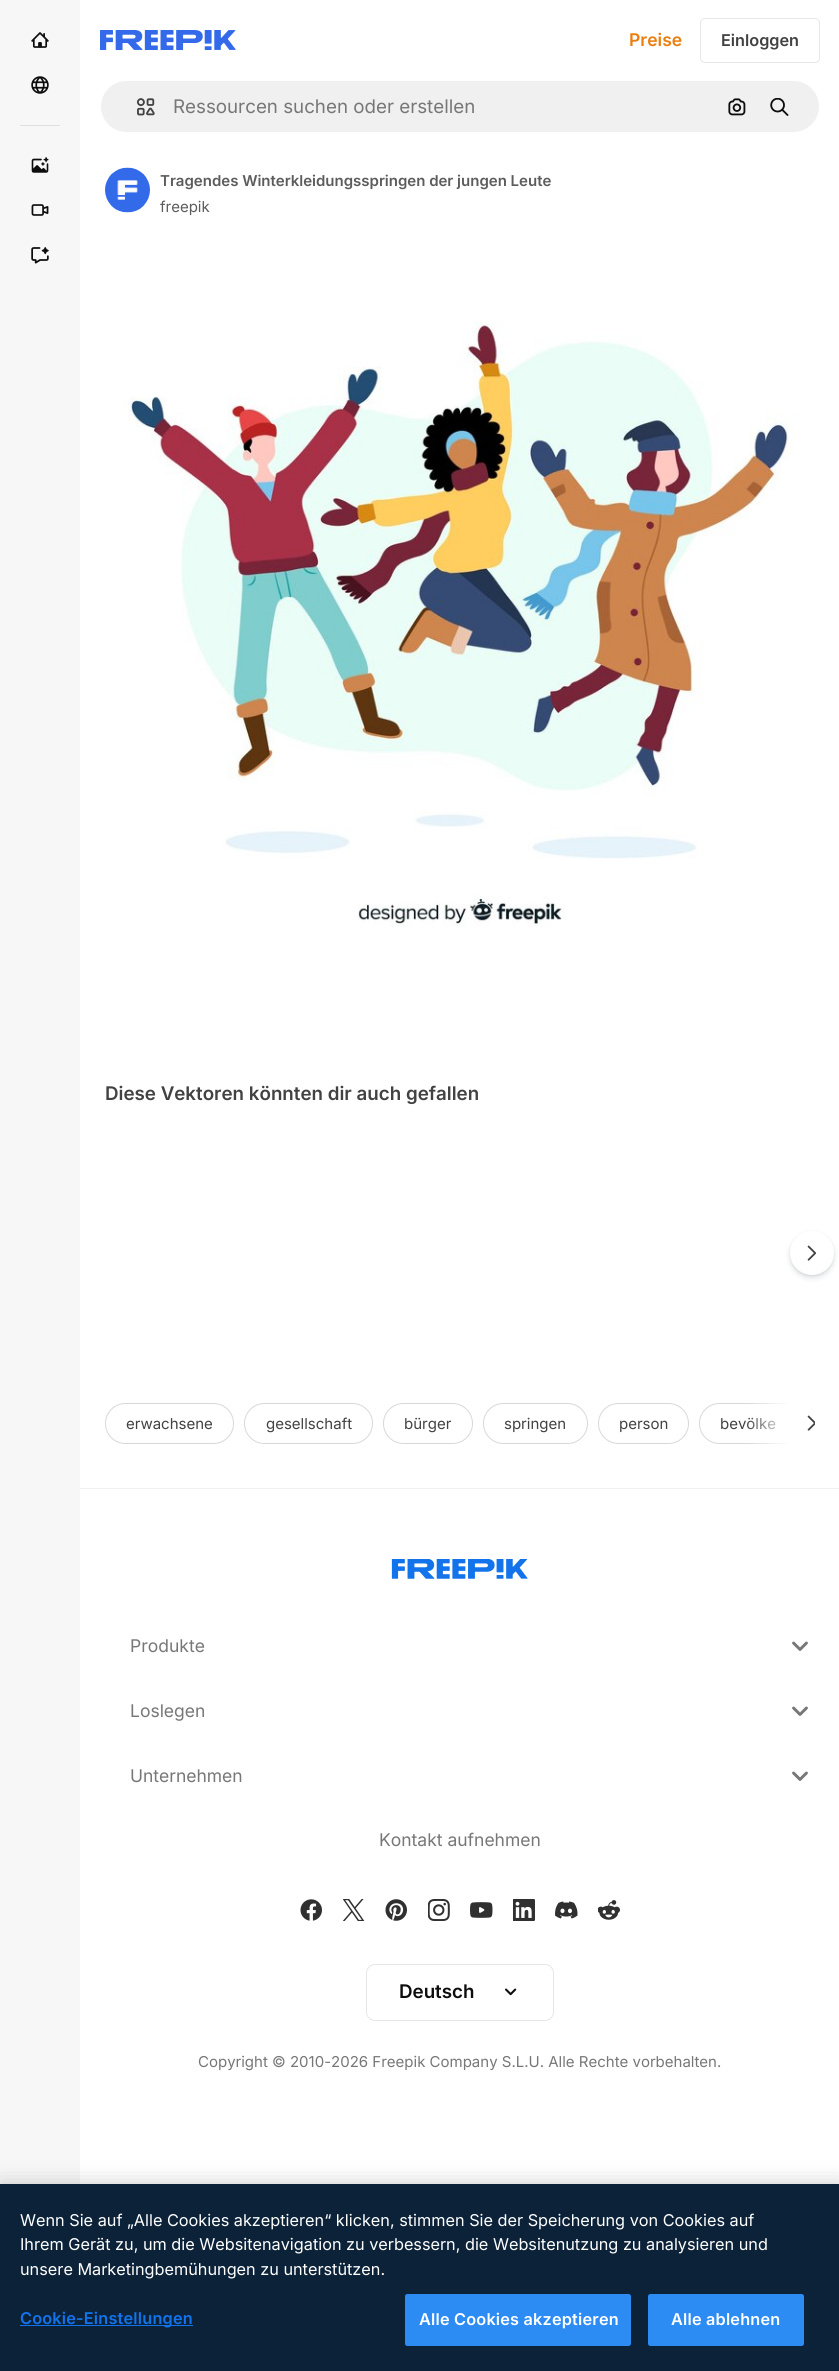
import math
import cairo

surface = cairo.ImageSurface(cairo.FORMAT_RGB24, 839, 2371)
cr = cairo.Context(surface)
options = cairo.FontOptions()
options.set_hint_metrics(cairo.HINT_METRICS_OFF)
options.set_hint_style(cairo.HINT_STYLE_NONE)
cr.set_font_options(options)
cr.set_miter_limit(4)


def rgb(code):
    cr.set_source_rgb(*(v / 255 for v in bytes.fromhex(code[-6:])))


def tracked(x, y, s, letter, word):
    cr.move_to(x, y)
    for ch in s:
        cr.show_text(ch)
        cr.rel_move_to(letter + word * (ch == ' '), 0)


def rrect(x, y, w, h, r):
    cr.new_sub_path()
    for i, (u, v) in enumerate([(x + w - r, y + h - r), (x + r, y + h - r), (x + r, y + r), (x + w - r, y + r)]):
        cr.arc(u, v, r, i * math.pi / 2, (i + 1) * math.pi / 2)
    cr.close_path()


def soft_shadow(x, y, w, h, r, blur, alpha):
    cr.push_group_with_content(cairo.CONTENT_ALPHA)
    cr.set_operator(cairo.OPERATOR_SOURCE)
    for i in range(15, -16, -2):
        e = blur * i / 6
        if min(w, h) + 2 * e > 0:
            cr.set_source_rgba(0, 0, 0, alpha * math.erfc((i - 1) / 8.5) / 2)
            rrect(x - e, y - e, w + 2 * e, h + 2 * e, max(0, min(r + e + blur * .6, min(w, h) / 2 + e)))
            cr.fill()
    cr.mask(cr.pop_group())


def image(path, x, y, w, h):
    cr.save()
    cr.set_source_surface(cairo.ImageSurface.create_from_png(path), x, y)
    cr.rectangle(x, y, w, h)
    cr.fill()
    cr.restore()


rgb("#ffffff")
cr.paint()
rgb("#f7f7f7")
cr.rectangle(0, 0, 80, 2184)
cr.fill()
image("img/1.png", 31, 32, 18, 16)
image("img/2.png", 31, 76, 18, 18)
rgb("#e0e0e0")
cr.rectangle(20, 125, 40, 1)
cr.fill()
image("img/3.png", 31, 157, 18, 16)
image("img/4.png", 31, 204, 18, 12)
image("img/5.png", 31, 247, 18, 17)
image("img/6.png", 100, 30, 136, 20)
rrect(700.5, 18.5, 119, 44, 4.5)
rgb("#e7e7e7")
cr.set_line_width(1)
cr.stroke()
rgb("#f0f0f0")
rrect(100.5, 80.5, 719, 52, 26)
cr.fill_preserve()
rgb("#ffffff")
cr.stroke()
image("img/7.png", 136, 98, 19, 18)
image("img/8.png", 728, 98, 18, 18)
image("img/9.png", 770, 98, 19, 18)
image("img/10.png", 105, 167, 45, 46)
image("img/11.png", 121, 321, 675, 606)
rgb("#374957")
soft_shadow(790, 1234, 44, 44, 22, 3, 0.15)
soft_shadow(790, 1233, 44, 43, 21.5, 1, 0.1)
rgb("#ffffff")
cr.arc(812, 1253, 22, 0, 2 * math.pi)
cr.fill()
image("img/12.png", 807, 1245, 10, 16)
rrect(105.5, 1403.5, 128, 40, 20)
rgb("#d8d8d8")
cr.stroke()
rrect(244.5, 1403.5, 128, 40, 20)
cr.stroke()
rrect(383.5, 1403.5, 89, 40, 20)
cr.stroke()
rrect(483.5, 1403.5, 104, 40, 20)
cr.stroke()
rrect(598.5, 1403.5, 90, 40, 20)
cr.stroke()
cr.save()
cr.rectangle(105, 1403, 710, 41)
cr.clip()
rrect(699.5, 1403.5, 130, 40, 20)
cr.stroke()
cr.restore()
rgb("#ffffff")
cr.rectangle(790, 1403, 25, 41)
cr.fill()
image("img/13.png", 807, 1415, 8, 16)
rgb("#f0f0f0")
cr.rectangle(80, 1488, 759, 1)
cr.fill()
image("img/14.png", 391, 1559, 137, 20)
image("img/15.png", 792, 1641, 16, 10)
image("img/15.png", 792, 1706, 16, 10)
image("img/15.png", 792, 1771, 16, 10)
image("img/16.png", 300, 1899, 22, 22)
image("img/17.png", 343, 1899, 22, 22)
image("img/18.png", 385, 1899, 22, 22)
image("img/19.png", 428, 1899, 22, 22)
image("img/20.png", 470, 1902, 23, 16)
image("img/21.png", 513, 1899, 22, 22)
image("img/22.png", 555, 1901, 23, 18)
image("img/23.png", 598, 1900, 22, 20)
rrect(366.5, 1964.5, 187, 56, 8.5)
rgb("#e6e6e6")
cr.stroke()
image("img/24.png", 505, 1988, 12, 8)
rgb("#000000")
soft_shadow(0, 2184, 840, 187, 0, 11, 0.2)
rgb("#0b2239")
cr.rectangle(0, 2184, 839, 187)
cr.fill()
rgb("#1273eb")
cr.rectangle(20, 2325, 173, 1)
cr.fill()
rgb("#2c8cf4")
rrect(405.5, 2294.5, 225, 51, 2)
cr.fill_preserve()
cr.stroke()
rrect(648.5, 2294.5, 155, 51, 2)
cr.fill_preserve()
cr.stroke()
cr.select_font_face("Inter SemiBold")
cr.set_font_size(17.5)
rgb("#ea7e11")
cr.move_to(629, 46)
cr.show_text("Preise")
cr.set_font_size(16.25)
rgb("#424242")
cr.move_to(721, 46)
cr.show_text("Einloggen")
cr.select_font_face("Inter")
cr.set_font_size(18.75)
rgb("#777777")
cr.move_to(173, 113)
cr.show_text("Ressourcen suchen oder erstellen")
cr.select_font_face("Inter SemiBold")
cr.set_font_size(15)
rgb("#5c5c5c")
cr.move_to(160, 186)
cr.show_text("Tragendes Winterkleidungsspringen der jungen Leute")
cr.select_font_face("Inter")
cr.move_to(160, 212)
cr.show_text("freepik")
cr.select_font_face("Inter SemiBold")
cr.set_font_size(18.75)
rgb("#424242")
cr.move_to(105, 1100)
cr.show_text("Diese Vektoren könnten dir auch gefallen")
cr.select_font_face("Inter")
cr.set_font_size(15)
for x, y, s in [
    (126, 1429, "erwachsene"),
    (266, 1429, "gesellschaft"),
    (404, 1429, "bürger"),
    (504, 1429, "springen"),
    (619, 1429, "person"),
    (720, 1429, "bevölke"),
]:
    cr.move_to(x, y)
    cr.show_text(s)
gradient = cairo.LinearGradient(790, 1423, 746, 1423)
gradient.add_color_stop_rgba(0, 1, 1, 1, 1)
gradient.add_color_stop_rgba(1, 1, 1, 1, 0)
cr.set_source(gradient)
cr.rectangle(747, 1403, 43, 41)
cr.fill()
cr.set_font_size(17.5)
rgb("#777777")
for x, y, s in [
    (130, 1652, "Produkte"),
    (130, 1717, "Loslegen"),
    (130, 1782, "Unternehmen"),
    (379, 1846, "Kontakt aufnehmen"),
]:
    cr.move_to(x, y)
    cr.show_text(s)
cr.select_font_face("Inter SemiBold")
cr.set_font_size(18.75)
rgb("#0d0d0d")
cr.move_to(399, 1998)
cr.show_text("Deutsch")
cr.select_font_face("Inter")
cr.set_font_size(15)
rgb("#777777")
cr.move_to(198, 2067)
cr.show_text("Copyright © 2010-2026 Freepik Company S.L.U. Alle Rechte vorbehalten.")
cr.set_font_size(16.25)
rgb("#ffffff")
for x, y, s in [
    (20, 2226, "Wenn Sie auf „Alle Cookies akzeptieren“ klicken, stimmen Sie der Speicherung von Cookies auf"),
    (20, 2250, "Ihrem Gerät zu, um die Websitenavigation zu verbessern, die Websitenutzung zu analysieren und"),
    (20, 2275, "unsere Marketingbemühungen zu unterstützen."),
]:
    cr.move_to(x, y)
    cr.show_text(s)
cr.select_font_face("Inter SemiBold")
rgb("#1273eb")
tracked(20, 2324, "Cookie-Einstellungen", 0.2, 0)
rgb("#ffffff")
tracked(419, 2325, "Alle Cookies akzeptieren", 0.2, 0)
tracked(671, 2325, "Alle ablehnen", 0.2, 0)
surface.write_to_png("page.png")
